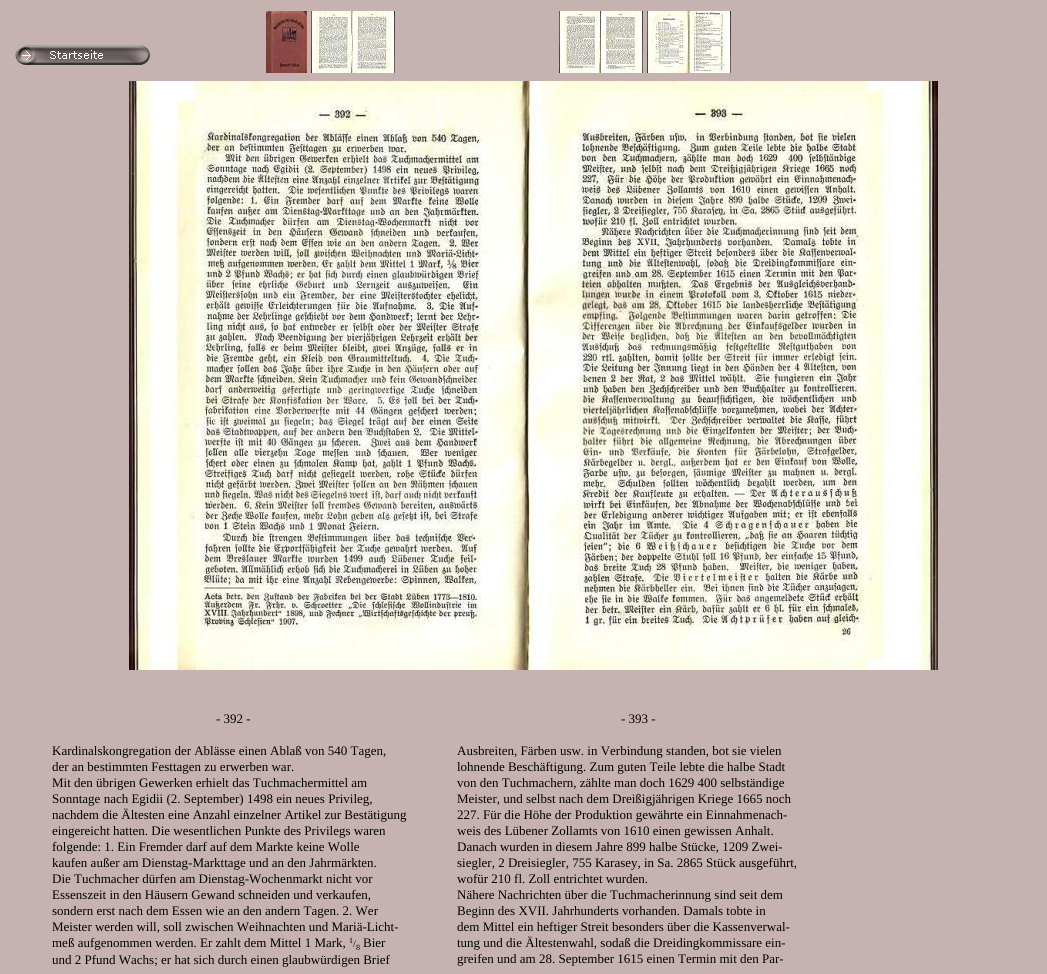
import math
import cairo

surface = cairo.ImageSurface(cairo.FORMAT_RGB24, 1047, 974)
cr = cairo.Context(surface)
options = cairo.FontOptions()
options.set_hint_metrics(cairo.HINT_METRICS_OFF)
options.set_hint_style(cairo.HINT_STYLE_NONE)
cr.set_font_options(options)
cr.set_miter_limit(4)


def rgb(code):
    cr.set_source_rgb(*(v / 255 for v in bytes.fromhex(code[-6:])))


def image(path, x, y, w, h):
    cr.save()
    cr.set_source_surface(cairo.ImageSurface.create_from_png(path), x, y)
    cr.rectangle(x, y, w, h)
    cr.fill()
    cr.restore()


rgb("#c7b2b2")
cr.paint()
image("img/1.png", 15, 45, 135, 20)
image("img/2.png", 266, 11, 41, 62)
image("img/3.png", 311, 11, 84, 62)
image("img/4.png", 559, 11, 84, 62)
image("img/5.png", 647, 11, 84, 62)
image("img/6.png", 129, 81, 809, 589)
cr.select_font_face("Liberation Serif")
cr.set_font_size(13)
rgb("#000000")
for x, y, s in [
    (216, 723, "- 392 -"),
    (52, 755, "Kardinalskongregation der Ablässe einen Ablaß von 540 Tagen,"),
    (52, 771, "der an bestimmten Festtagen zu erwerben war."),
    (52, 787, "Mit den übrigen Gewerken erhielt das Tuchmachermittel am"),
    (52, 803, "Sonntage nach Egidii (2. September) 1498 ein neues Privileg,"),
    (52, 819, "nachdem die Ältesten eine Anzahl einzelner Artikel zur Bestätigung"),
    (52, 835, "eingereicht hatten. Die wesentlichen Punkte des Privilegs waren"),
    (52, 851, "folgende: 1. Ein Fremder darf auf dem Markte keine Wolle"),
    (52, 867, "kaufen außer am Dienstag-Markttage und an den Jahrmärkten."),
    (52, 883, "Die Tuchmacher dürfen am Dienstag-Wochenmarkt nicht vor"),
    (52, 899, "Essenszeit in den Häusern Gewand schneiden und verkaufen,"),
    (52, 915, "sondern erst nach dem Essen wie an den andern Tagen. 2. Wer"),
    (52, 931, "Meister werden will, soll zwischen Weihnachten und Mariä-Licht-"),
    (52, 947, "meß aufgenommen werden. Er zahlt dem Mittel 1 Mark,"),
]:
    cr.move_to(x, y)
    cr.show_text(s)
cr.set_font_size(8)
cr.move_to(349, 943)
cr.show_text("1")
cr.set_font_size(10)
cr.move_to(353, 947)
cr.show_text("/")
cr.set_font_size(8)
cr.move_to(356, 950)
cr.show_text("8")
cr.set_font_size(13)
for x, y, s in [
    (363, 947, "Bier"),
    (52, 964, "und 2 Pfund Wachs; er hat sich durch einen glaubwürdigen Brief"),
    (621, 723, "- 393 -"),
    (457, 755, "Ausbreiten, Färben usw. in Verbindung standen, bot sie vielen"),
    (457, 771, "lohnende Beschäftigung. Zum guten Teile lebte die halbe Stadt"),
    (457, 787, "von den Tuchmachern, zählte man doch 1629 400 selbständige"),
    (457, 803, "Meister, und selbst nach dem Dreißigjährigen Kriege 1665 noch"),
    (457, 819, "227. Für die Höhe der Produktion gewährte ein Einnahmenach-"),
    (457, 835, "weis des Lübener Zollamts von 1610 einen gewissen Anhalt."),
    (457, 851, "Danach wurden in diesem Jahre 899 halbe Stücke, 1209 Zwei-"),
    (457, 867, "siegler, 2 Dreisiegler, 755 Karasey, in Sa. 2865 Stück ausgeführt,"),
    (457, 883, "wofür 210 fl. Zoll entrichtet wurden."),
    (457, 899, "Nähere Nachrichten über die Tuchmacherinnung sind seit dem"),
    (457, 915, "Beginn des XVII. Jahrhunderts vorhanden. Damals tobte in"),
    (457, 931, "dem Mittel ein heftiger Streit besonders über die Kassenverwal-"),
    (457, 947, "tung und die Ältestenwahl, sodaß die Dreidingkommissare ein-"),
    (457, 963, "greifen und am 28. September 1615 einen Termin mit den Par-"),
]:
    cr.move_to(x, y)
    cr.show_text(s)
surface.write_to_png("page.png")
